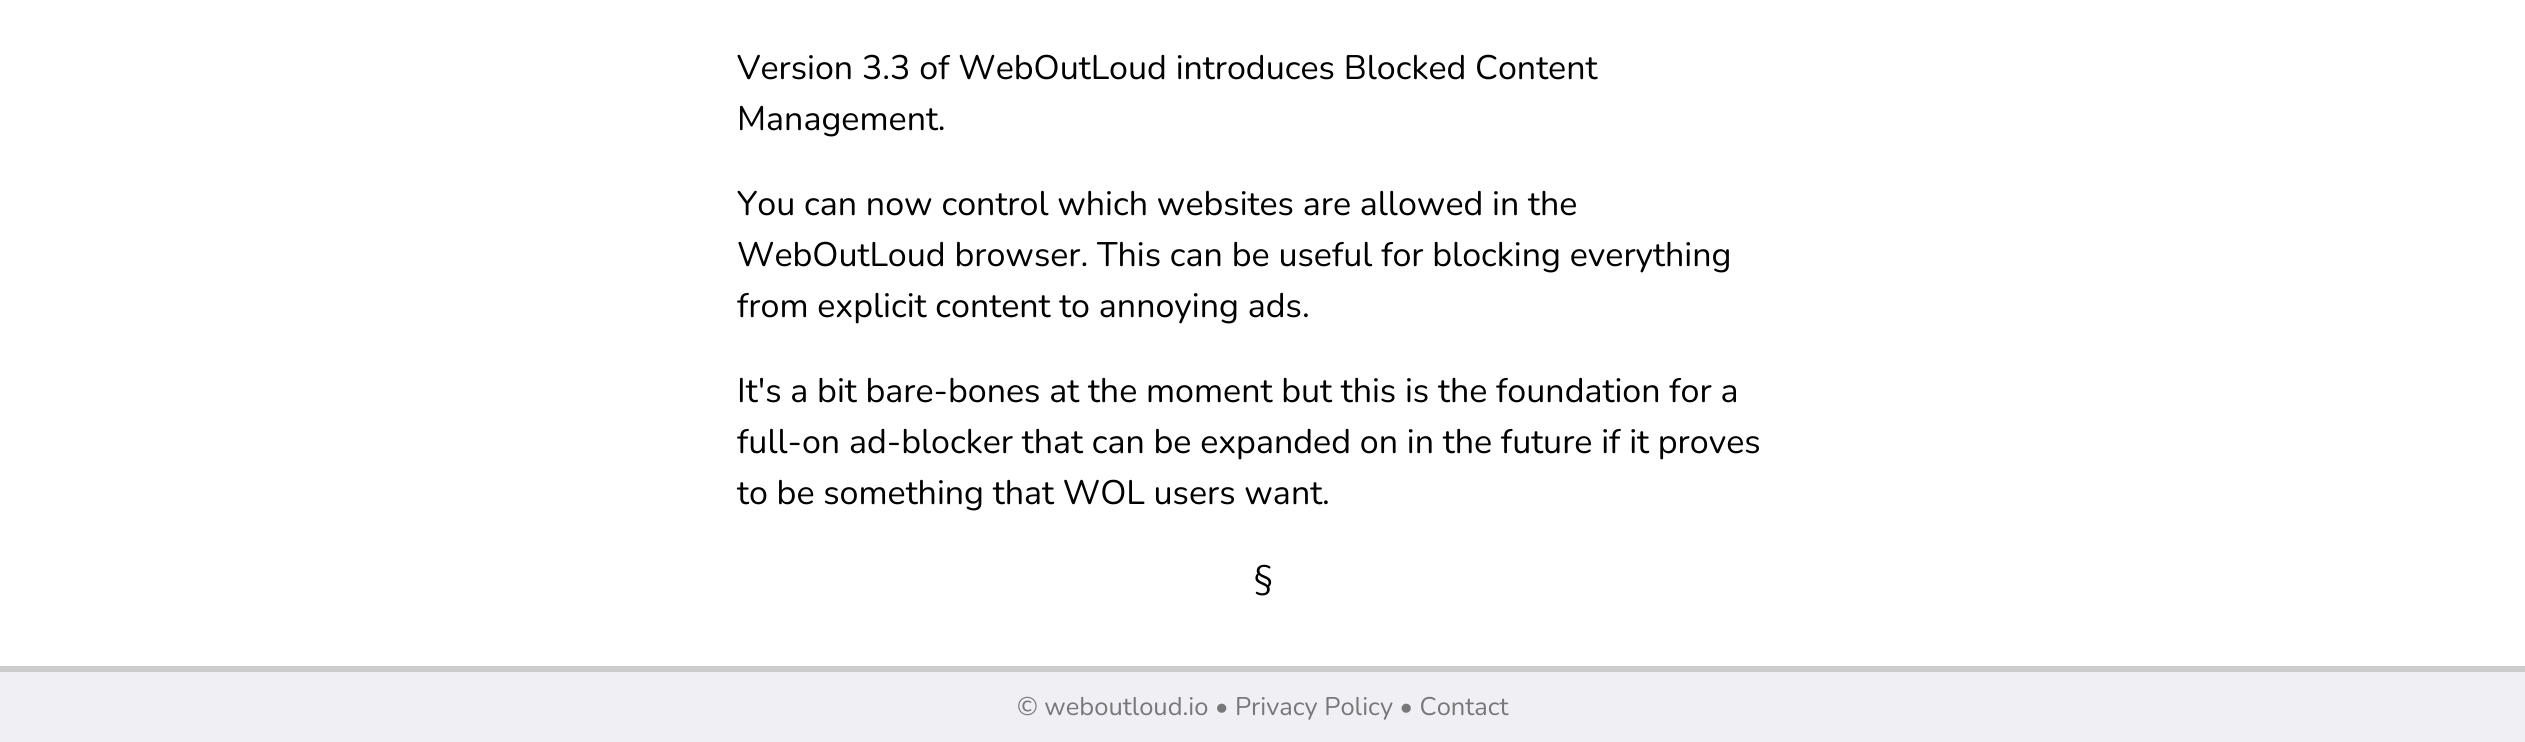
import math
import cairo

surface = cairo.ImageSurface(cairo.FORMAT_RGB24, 2525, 742)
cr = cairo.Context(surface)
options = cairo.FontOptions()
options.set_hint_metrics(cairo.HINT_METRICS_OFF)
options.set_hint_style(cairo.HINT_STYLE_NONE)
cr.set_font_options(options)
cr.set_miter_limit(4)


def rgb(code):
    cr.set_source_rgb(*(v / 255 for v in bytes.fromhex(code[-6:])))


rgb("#ffffff")
cr.paint()
cr.rectangle(-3, 669, 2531, 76)
rgb("#cccccc")
cr.set_line_width(6)
cr.stroke()
rgb("#efeff4")
cr.rectangle(0, 672, 2525, 70)
cr.fill()
cr.select_font_face("Nunito")
cr.set_font_size(34)
rgb("#000000")
for x, y, s in [
    (737, 79, "Version 3.3 of WebOutLoud introduces Blocked Content"),
    (737, 130, "Management."),
    (737, 215, "You can now control which websites are allowed in the"),
    (737, 266, "WebOutLoud browser. This can be useful for blocking everything"),
    (737, 317, "from explicit content to annoying ads."),
    (737, 402, "It's a bit bare-bones at the moment but this is the foundation for a"),
    (737, 453, "full-on ad-blocker that can be expanded on in the future if it proves"),
    (737, 504, "to be something that WOL users want."),
    (1254, 589, "§"),
]:
    cr.move_to(x, y)
    cr.show_text(s)
cr.set_font_size(25.5)
rgb("#78787b")
cr.move_to(1017, 715)
cr.show_text("© weboutloud.io • Privacy Policy • Contact")
surface.write_to_png("page.png")
